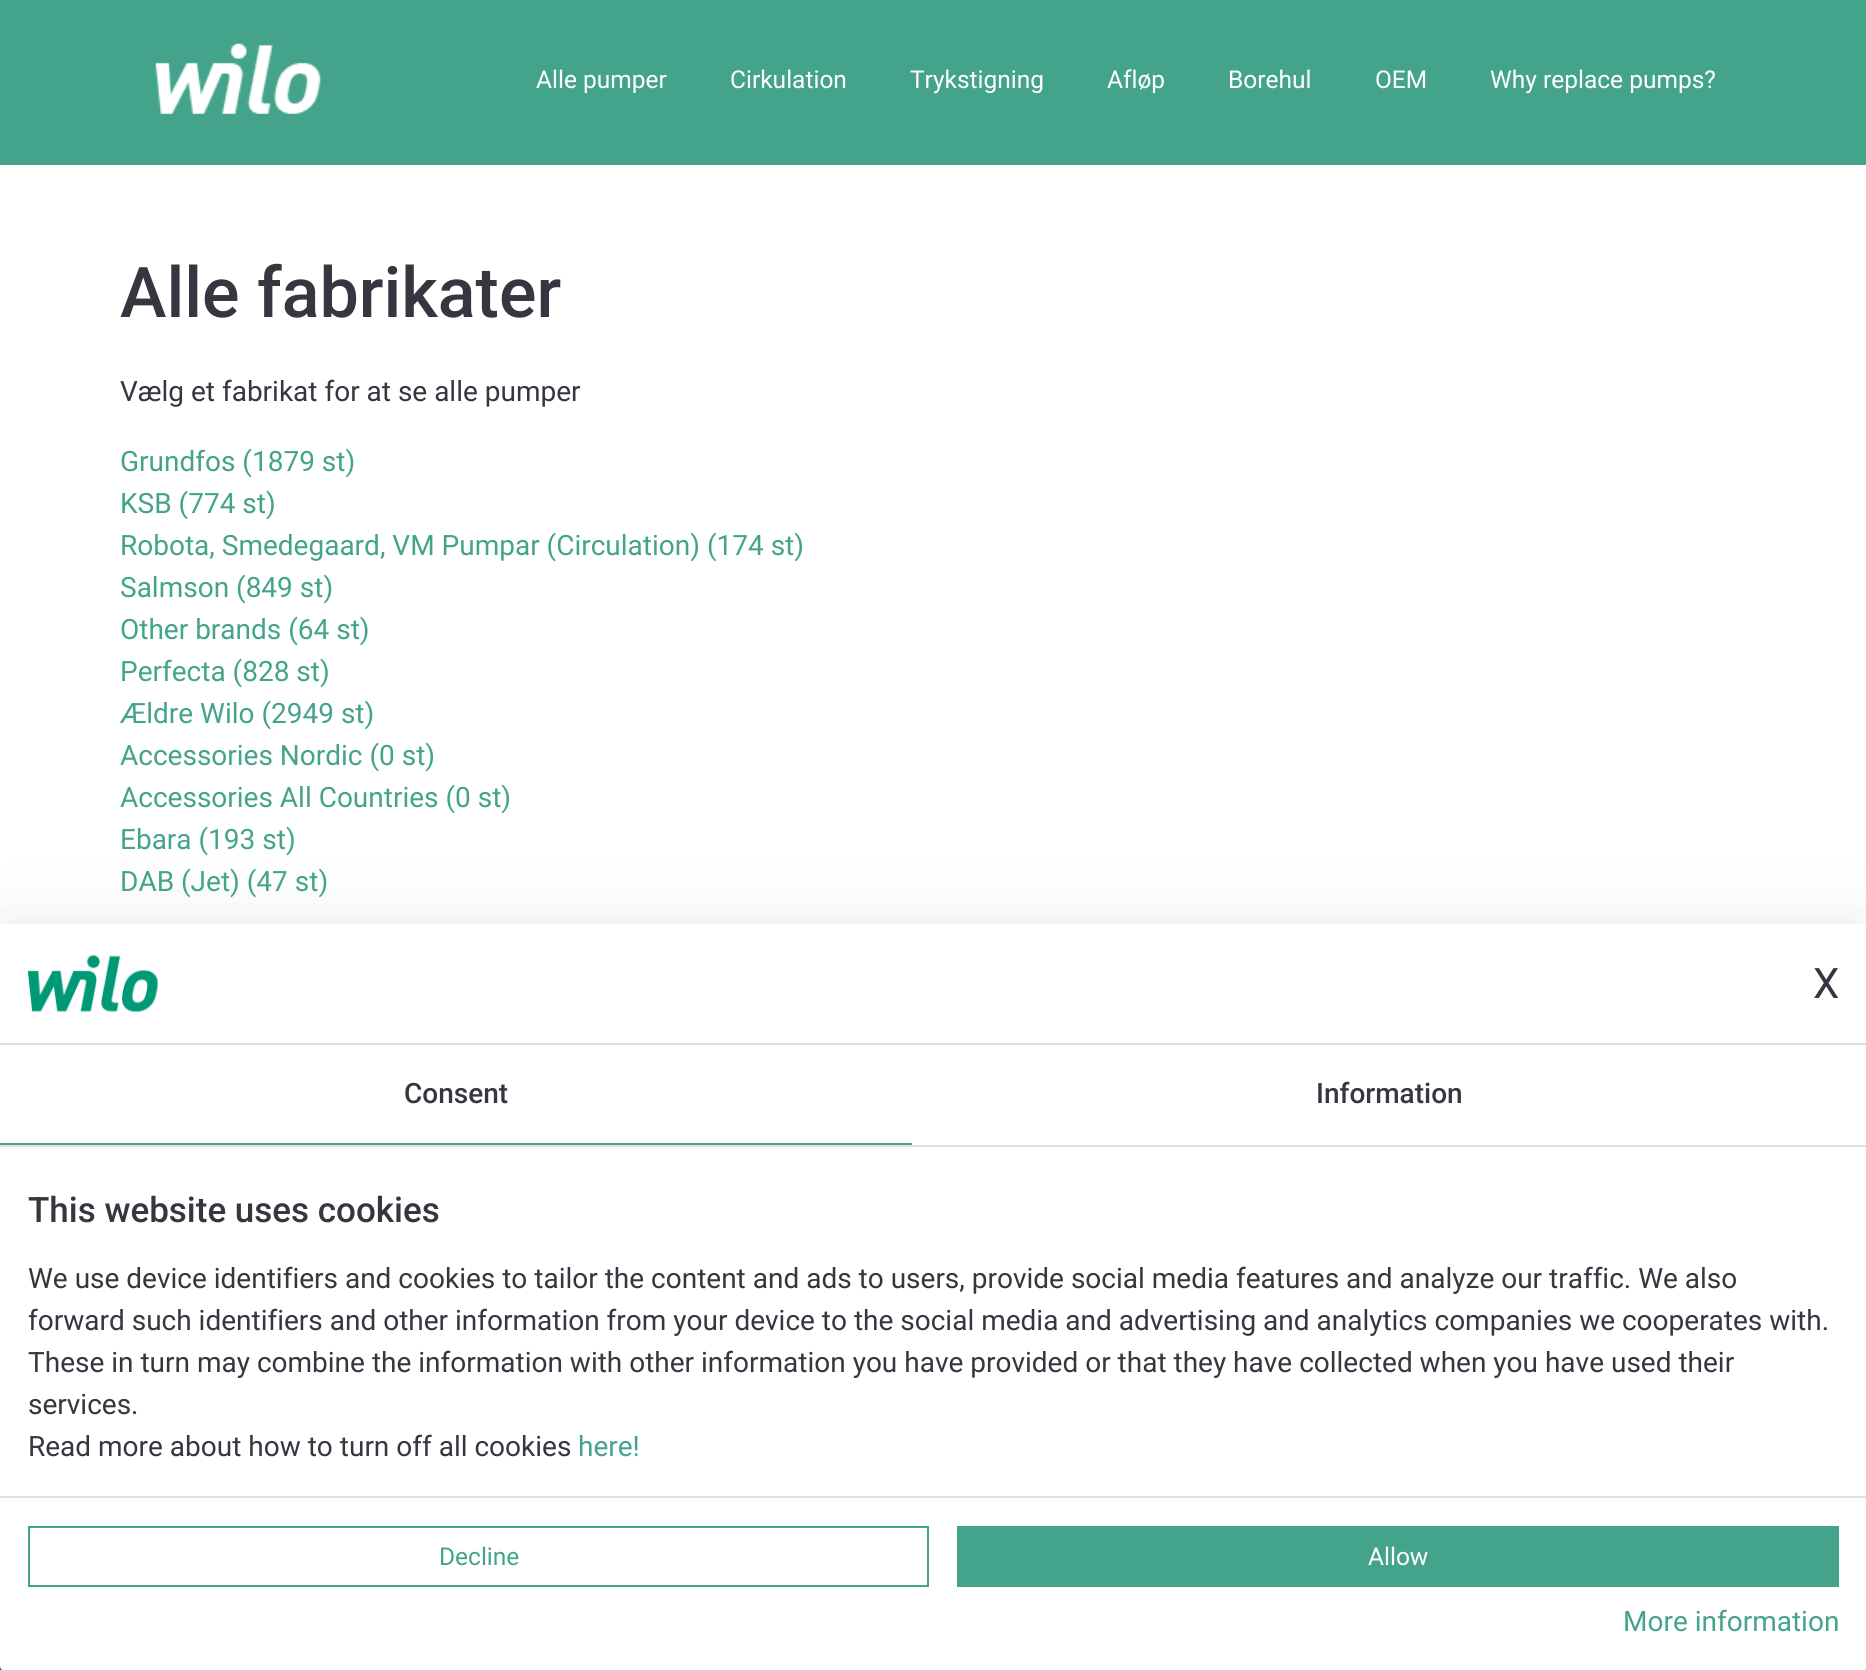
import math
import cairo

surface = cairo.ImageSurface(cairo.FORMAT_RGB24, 1866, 1670)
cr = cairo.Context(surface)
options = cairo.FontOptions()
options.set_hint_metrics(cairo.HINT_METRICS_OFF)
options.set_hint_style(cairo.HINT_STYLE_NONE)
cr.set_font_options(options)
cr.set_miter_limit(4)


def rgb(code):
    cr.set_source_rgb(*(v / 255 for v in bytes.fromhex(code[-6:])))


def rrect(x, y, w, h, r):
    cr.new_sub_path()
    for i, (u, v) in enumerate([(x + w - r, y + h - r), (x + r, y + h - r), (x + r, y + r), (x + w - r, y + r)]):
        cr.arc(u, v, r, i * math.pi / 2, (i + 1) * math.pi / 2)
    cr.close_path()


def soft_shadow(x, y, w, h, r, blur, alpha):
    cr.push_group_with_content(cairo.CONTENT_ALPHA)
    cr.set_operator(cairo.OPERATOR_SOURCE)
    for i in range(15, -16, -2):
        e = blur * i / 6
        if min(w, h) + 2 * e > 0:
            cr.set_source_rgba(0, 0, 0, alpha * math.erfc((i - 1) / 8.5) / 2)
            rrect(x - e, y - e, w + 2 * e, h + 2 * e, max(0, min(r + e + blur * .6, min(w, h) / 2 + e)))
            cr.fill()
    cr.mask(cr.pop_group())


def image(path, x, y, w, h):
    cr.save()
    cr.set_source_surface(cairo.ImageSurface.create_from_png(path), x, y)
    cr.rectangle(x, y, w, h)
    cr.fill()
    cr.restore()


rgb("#ffffff")
cr.paint()
rgb("#44a48b")
cr.rectangle(0, 0, 1866, 165)
cr.fill()
image("img/1.png", 155, 43, 166, 71)
rgb("#363640")
cr.rectangle(0, 1666, 1866, 4)
cr.fill()
rgb("#000000")
soft_shadow(0, 952, 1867, 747, 5, 42, 0.18)
rgb("#ffffff")
cr.new_path()
cr.move_to(0, 924)
cr.line_to(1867, 924)
cr.line_to(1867, 1666)
cr.curve_to(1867, 1669, 1865, 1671, 1862, 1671)
cr.line_to(5, 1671)
cr.curve_to(2, 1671, 0, 1669, 0, 1666)
cr.close_path()
cr.fill()
rgb("#dee2e6")
cr.rectangle(0, 1043, 1866, 2)
cr.fill()
image("img/2.png", 28, 955, 130, 57)
for x, y, w, h, color in [
    (0, 1145, 1866, 2, "#dee2e6"),
    (0, 1143, 912, 2, "#44a48b"),
    (0, 1496, 1866, 2, "#dee2e6"),
]:
    rgb(color)
    cr.rectangle(x, y, w, h)
    cr.fill()
cr.rectangle(29, 1527, 899, 59)
rgb("#44a48b")
cr.stroke()
cr.rectangle(957, 1526, 882, 61)
cr.fill()
cr.select_font_face("Roboto")
cr.set_font_size(24.5)
rgb("#ffffff")
for x, y, s in [
    (536, 88, "Alle pumper"),
    (730, 88, "Cirkulation"),
    (910, 88, "Trykstigning"),
    (1107, 88, "Afløp"),
    (1228, 88, "Borehul"),
    (1375, 88, "OEM"),
    (1490, 88, "Why replace pumps?"),
]:
    cr.move_to(x, y)
    cr.show_text(s)
cr.select_font_face("Roboto Medium")
cr.set_font_size(70)
rgb("#363640")
cr.move_to(120, 317)
cr.show_text("Alle fabrikater")
cr.select_font_face("Roboto")
cr.set_font_size(28)
cr.move_to(120, 401)
cr.show_text("Vælg et fabrikat for at se alle pumper")
rgb("#44a48b")
for x, y, s in [
    (120, 471, "Grundfos (1879 st)"),
    (120, 513, "KSB (774 st)"),
    (120, 555, "Robota, Smedegaard, VM Pumpar (Circulation) (174 st)"),
    (120, 597, "Salmson (849 st)"),
    (120, 639, "Other brands (64 st)"),
    (120, 681, "Perfecta (828 st)"),
    (120, 723, "Ældre Wilo (2949 st)"),
    (120, 765, "Accessories Nordic (0 st)"),
    (120, 807, "Accessories All Countries (0 st)"),
    (120, 849, "Ebara (193 st)"),
    (120, 891, "DAB (Jet) (47 st)"),
]:
    cr.move_to(x, y)
    cr.show_text(s)
cr.set_font_size(42)
rgb("#363640")
cr.move_to(1813, 998)
cr.show_text("X")
cr.select_font_face("Roboto Medium")
cr.set_font_size(28)
cr.move_to(404, 1103)
cr.show_text("Consent")
cr.move_to(1316, 1103)
cr.show_text("Information")
cr.set_font_size(35)
cr.move_to(28, 1222)
cr.show_text("This website uses cookies")
cr.select_font_face("Roboto")
cr.set_font_size(28)
for x, y, s in [
    (28, 1288, "We use device identifiers and cookies to tailor the content and ads to users, provide social media features and analyze our traffic. We also"),
    (28, 1330, "forward such identifiers and other information from your device to the social media and advertising and analytics companies we cooperates with."),
    (28, 1372, "These in turn may combine the information with other information you have provided or that they have collected when you have used their"),
    (28, 1414, "services."),
    (28, 1456, "Read more about how to turn off all cookies"),
]:
    cr.move_to(x, y)
    cr.show_text(s)
rgb("#44a48b")
cr.move_to(578, 1456)
cr.show_text("here!")
cr.set_font_size(24.5)
cr.move_to(439, 1565)
cr.show_text("Decline")
rgb("#ffffff")
cr.move_to(1368, 1565)
cr.show_text("Allow")
cr.set_font_size(28)
rgb("#44a48b")
cr.move_to(1623, 1631)
cr.show_text("More information")
surface.write_to_png("page.png")
